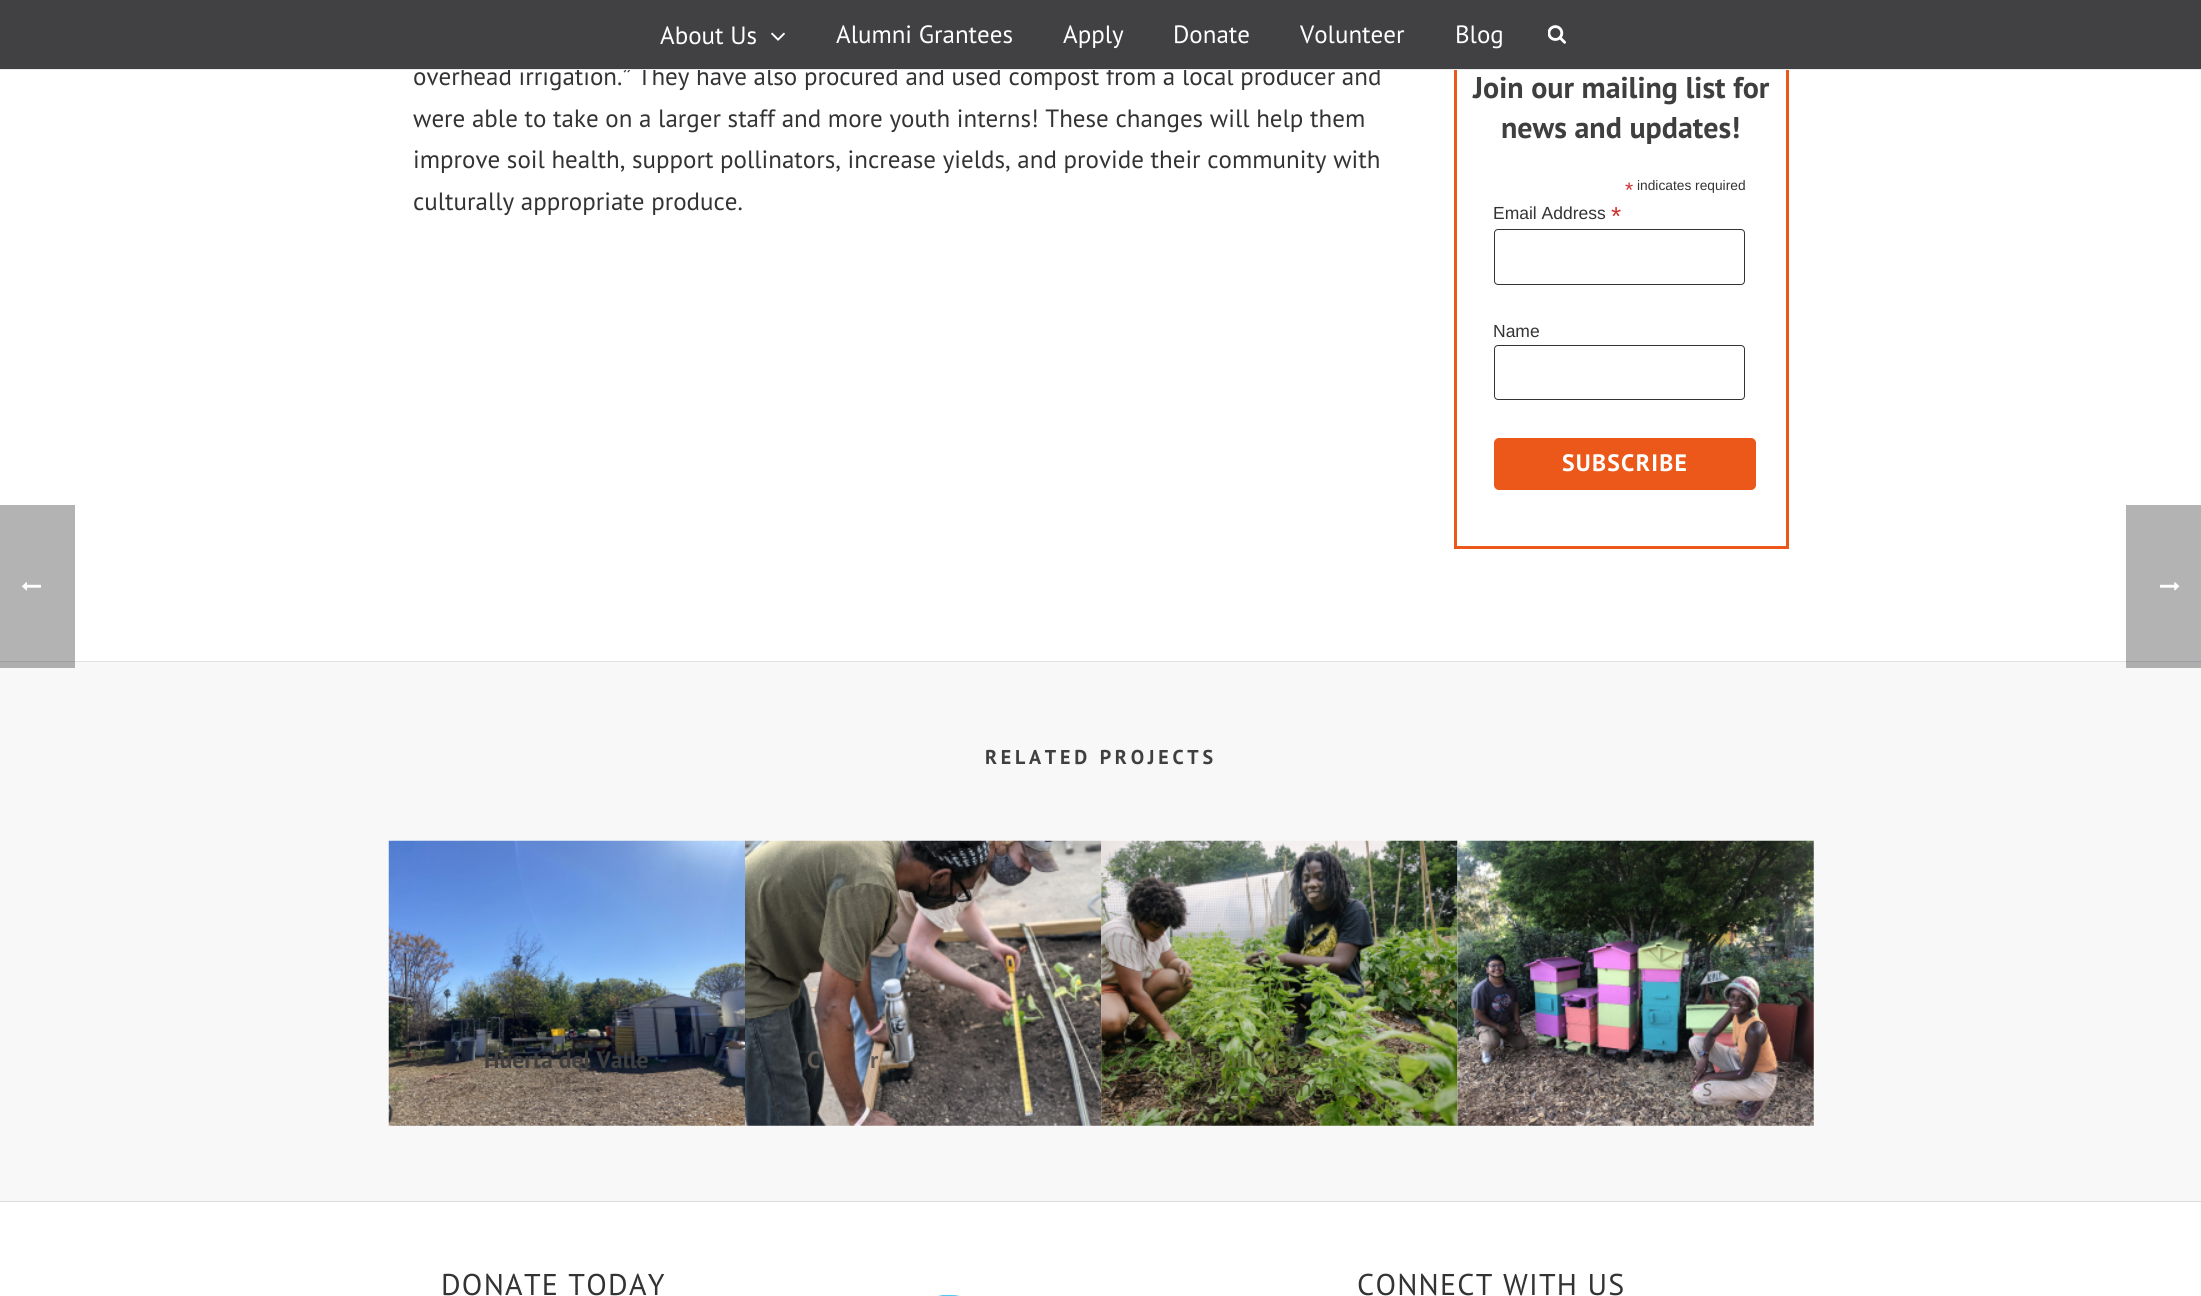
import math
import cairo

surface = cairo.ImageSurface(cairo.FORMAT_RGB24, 2201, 1296)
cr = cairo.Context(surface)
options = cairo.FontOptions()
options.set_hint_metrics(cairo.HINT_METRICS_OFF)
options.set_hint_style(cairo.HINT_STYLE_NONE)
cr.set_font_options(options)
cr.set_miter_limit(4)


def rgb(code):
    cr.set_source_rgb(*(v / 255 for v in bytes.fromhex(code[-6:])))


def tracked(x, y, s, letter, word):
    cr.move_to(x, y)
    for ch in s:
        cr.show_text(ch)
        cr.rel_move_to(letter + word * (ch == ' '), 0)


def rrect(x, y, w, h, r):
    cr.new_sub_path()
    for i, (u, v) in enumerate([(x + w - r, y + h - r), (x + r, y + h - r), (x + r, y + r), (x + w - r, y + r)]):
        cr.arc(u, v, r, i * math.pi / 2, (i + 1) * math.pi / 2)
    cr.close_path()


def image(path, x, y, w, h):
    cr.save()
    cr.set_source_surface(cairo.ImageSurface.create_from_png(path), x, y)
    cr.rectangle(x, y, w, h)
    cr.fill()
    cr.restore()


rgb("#ffffff")
cr.paint()
rgb("#b3b3b3")
cr.rectangle(2126, 505, 75, 156)
cr.fill()
cr.rectangle(0, 505, 75, 156)
cr.fill()
image("img/1.png", 22, 582, 19, 9)
cr.rectangle(1455.5, -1.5, 332, 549)
rgb("#eb581a")
cr.set_line_width(3)
cr.stroke()
rrect(1494.5, 229.5, 250, 55, 3.5)
rgb("#333333")
cr.set_line_width(1)
cr.stroke()
rrect(1494.5, 345.5, 250, 54, 3.5)
cr.stroke()
rgb("#eb581a")
rrect(1494, 438, 262, 52, 5)
cr.fill()
for x, y, w, h, color in [
    (0, 662, 2201, 539, "#f8f8f8"),
    (2126, 662, 75, 6, "#aeaeae"),
    (0, 662, 75, 6, "#aeaeae"),
    (75, 661, 2051, 1, "#dfe2e5"),
    (2126, 661, 75, 1, "#9c9ea0"),
    (0, 661, 75, 1, "#9c9ea0"),
]:
    rgb(color)
    cr.rectangle(x, y, w, h)
    cr.fill()
image("img/4.png", 388, 840, 357, 286)
image("img/5.png", 745, 840, 357, 286)
image("img/6.png", 1101, 840, 357, 286)
image("img/7.png", 1457, 840, 357, 286)
rgb("#dbdbdb")
cr.rectangle(0, 1201, 2201, 1)
cr.fill()
image("img/8.png", 938, 1294, 22, 2)
image("img/9.png", 2160, 582, 20, 9)
cr.select_font_face("PT Sans")
cr.set_font_size(25)
rgb("#333333")
cr.move_to(413, 85)
cr.show_text("overhead irrigation.” They have also procured and used compost from a local producer and")
rgb("#414042")
cr.rectangle(0, 0, 2201, 69)
cr.fill()
image("img/3.png", 1548, 25, 18, 19)
rgb("#ffffff")
for x, y, s in [
    (1455, 43, "Blog"),
    (1300, 43, "Volunteer"),
    (1173, 43, "Donate"),
    (1063, 43, "Apply"),
    (836, 43, "Alumni Grantees"),
]:
    cr.move_to(x, y)
    cr.show_text(s)
image("img/2.png", 771, 32, 14, 9)
cr.move_to(660, 44)
cr.show_text("About Us")
rgb("#ededed")
cr.rectangle(0, 69, 2201, 1)
cr.fill()
rgb("#333333")
for x, y, s in [
    (413, 127, "were able to take on a larger staff and more youth interns! These changes will help them"),
    (413, 168, "improve soil health, support pollinators, increase yields, and provide their community with"),
    (413, 210, "culturally appropriate produce."),
]:
    cr.move_to(x, y)
    cr.show_text(s)
cr.select_font_face("PT Sans", cairo.FONT_SLANT_NORMAL, cairo.FONT_WEIGHT_BOLD)
cr.set_font_size(30)
rgb("#3f3f3f")
cr.move_to(1473, 98)
cr.show_text("Join our mailing list for")
cr.move_to(1501, 138)
cr.show_text("news and updates!")
cr.select_font_face("Liberation Sans")
cr.set_font_size(21)
rgb("#cf2e2e")
cr.move_to(1625, 197)
cr.show_text("*")
cr.set_font_size(13.75)
rgb("#333333")
cr.move_to(1637, 190)
cr.show_text("indicates required")
cr.set_font_size(17.5)
cr.move_to(1493, 219)
cr.show_text("Email Address")
cr.set_font_size(26)
rgb("#cf2e2e")
cr.move_to(1611, 225)
cr.show_text("*")
cr.set_font_size(17.5)
rgb("#333333")
cr.move_to(1493, 337)
cr.show_text("Name")
cr.select_font_face("PT Sans", cairo.FONT_SLANT_NORMAL, cairo.FONT_WEIGHT_BOLD)
cr.set_font_size(23.75)
rgb("#ffffff")
tracked(1562, 471, "SUBSCRIBE", 1.25, 0)
cr.set_font_size(20)
rgb("#3f3f3f")
tracked(985, 764, "RELATED PROJECTS", 3.75, 0)
cr.set_font_size(23.75)
cr.move_to(484, 1068)
cr.show_text("Huerta del Valle")
rgb("#645b56")
cr.move_to(807, 1068)
cr.show_text("C")
cr.move_to(870, 1068)
cr.show_text("r")
rgb("#5f6d38")
cr.move_to(1210, 1068)
cr.show_text("Philly Forests")
cr.select_font_face("PT Sans")
cr.set_font_size(25)
rgb("#535f32")
cr.move_to(1201, 1096)
cr.show_text("2022 Grantees")
rgb("#827977")
cr.move_to(1702, 1096)
cr.show_text("s")
cr.set_font_size(30)
rgb("#333333")
tracked(441, 1295, "DONATE TODAY", 1.25, 0)
tracked(1357, 1295, "CONNECT WITH US", 1.25, 0)
surface.write_to_png("page.png")
